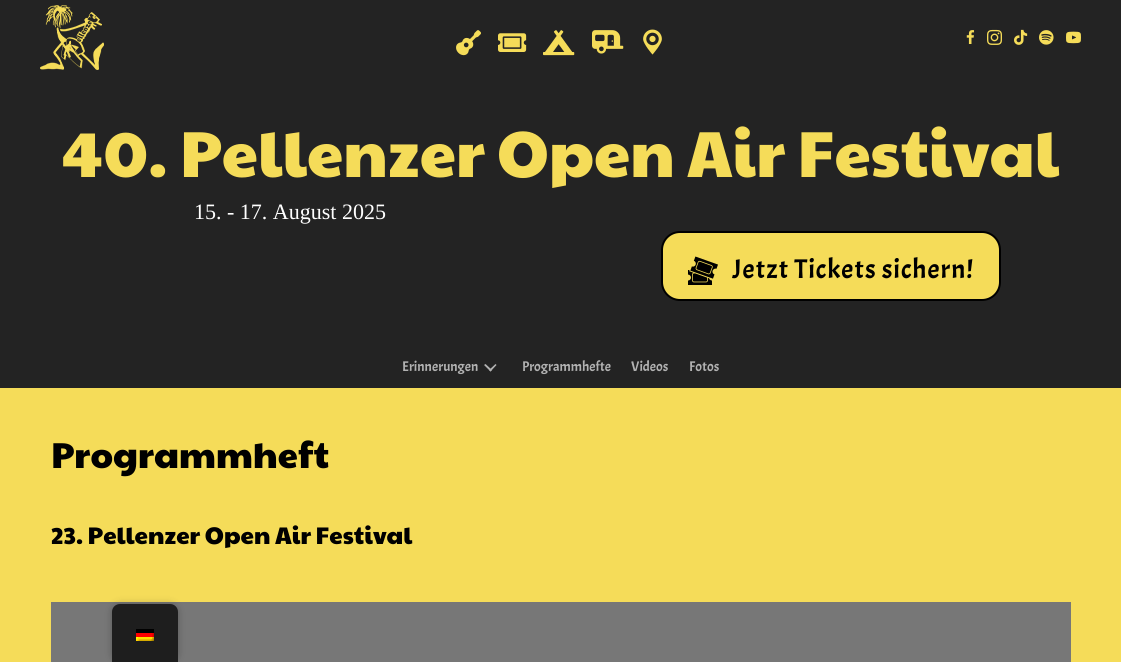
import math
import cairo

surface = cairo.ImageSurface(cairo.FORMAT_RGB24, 1121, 662)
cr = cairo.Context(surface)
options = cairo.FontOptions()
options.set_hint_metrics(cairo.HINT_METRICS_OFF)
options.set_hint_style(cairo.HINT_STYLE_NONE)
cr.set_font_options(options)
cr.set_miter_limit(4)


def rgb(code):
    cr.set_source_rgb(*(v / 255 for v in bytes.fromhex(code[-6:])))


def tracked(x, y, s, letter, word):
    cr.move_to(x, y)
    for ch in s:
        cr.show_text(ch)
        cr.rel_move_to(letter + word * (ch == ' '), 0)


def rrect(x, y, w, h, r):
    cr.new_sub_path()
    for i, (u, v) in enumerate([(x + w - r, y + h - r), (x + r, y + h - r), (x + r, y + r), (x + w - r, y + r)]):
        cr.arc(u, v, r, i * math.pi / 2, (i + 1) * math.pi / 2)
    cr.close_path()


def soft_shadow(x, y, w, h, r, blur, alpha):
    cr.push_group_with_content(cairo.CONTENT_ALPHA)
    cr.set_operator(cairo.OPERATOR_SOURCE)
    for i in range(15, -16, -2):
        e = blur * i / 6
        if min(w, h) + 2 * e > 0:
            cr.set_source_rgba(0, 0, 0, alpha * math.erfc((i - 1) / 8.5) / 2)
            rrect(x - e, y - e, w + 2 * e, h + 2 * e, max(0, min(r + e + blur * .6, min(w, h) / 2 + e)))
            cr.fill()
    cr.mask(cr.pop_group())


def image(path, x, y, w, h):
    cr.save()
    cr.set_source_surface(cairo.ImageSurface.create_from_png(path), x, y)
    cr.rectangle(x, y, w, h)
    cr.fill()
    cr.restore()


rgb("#f5dc59")
cr.paint()
rgb("#232323")
cr.rectangle(0, 0, 1121, 388)
cr.fill()
image("img/1.png", 40, 5, 64, 65)
image("img/2.png", 456, 30, 25, 26)
image("img/3.png", 498, 33, 29, 19)
image("img/4.png", 543, 30, 32, 26)
image("img/5.png", 592, 30, 32, 24)
image("img/6.png", 643, 29, 19, 26)
image("img/7.png", 966, 30, 9, 14)
image("img/8.png", 987, 29, 15, 16)
image("img/9.png", 1014, 29, 14, 16)
image("img/10.png", 1039, 30, 15, 15)
image("img/11.png", 1066, 31, 15, 13)
rgb("#f5dc59")
rrect(662, 232, 338, 68, 18)
cr.fill_preserve()
rgb("#000000")
cr.stroke()
image("img/12.png", 688, 256, 30, 29)
rgb("#b2b2b2")
cr.new_path()
cr.move_to(495.5, 364)
cr.line_to(496.5, 365)
cr.line_to(490.5, 371.5)
cr.line_to(489, 370)
cr.close_path()
cr.fill()
cr.new_path()
cr.move_to(485.5, 364)
cr.line_to(492, 370)
cr.line_to(490.5, 371.5)
cr.line_to(484, 365)
cr.close_path()
cr.fill()
rgb("#777777")
cr.rectangle(51, 602, 1020, 60)
cr.fill()
rgb("#000000")
soft_shadow(112, 604, 66, 58, 8, 4, 0.25)
rgb("#1e1e1e")
cr.new_path()
cr.move_to(120, 604)
cr.line_to(170, 604)
cr.curve_to(174.5, 604, 178, 607.5, 178, 612)
cr.line_to(178, 662)
cr.line_to(112, 662)
cr.line_to(112, 612)
cr.curve_to(112, 607.5, 115.5, 604, 120, 604)
cr.close_path()
cr.fill()
image("img/13.png", 136, 629, 18, 12)
cr.select_font_face("Paytone One")
cr.set_font_size(65)
rgb("#f5dc59")
cr.move_to(62, 177)
cr.show_text("40. Pellenzer Open Air Festival")
cr.select_font_face("Liberation Serif")
cr.set_font_size(22)
rgb("#ffffff")
cr.move_to(194, 219)
cr.show_text("15. - 17. August 2025")
cr.select_font_face("Acme")
cr.set_font_size(27)
rgb("#000000")
tracked(732, 278, "Jetzt Tickets sichern!", 1, 0)
cr.set_font_size(14)
rgb("#b2b2b2")
for x, y, s in [
    (402, 371, "Erinnerungen"),
    (522, 371, "Programmhefte"),
    (631, 371, "Videos"),
    (689, 371, "Fotos"),
]:
    cr.move_to(x, y)
    cr.show_text(s)
cr.select_font_face("Paytone One")
cr.set_font_size(36)
rgb("#000000")
cr.move_to(51, 468)
cr.show_text("Programmheft")
cr.set_font_size(24)
cr.move_to(51, 544)
cr.show_text("23. Pellenzer Open Air Festival")
surface.write_to_png("page.png")
